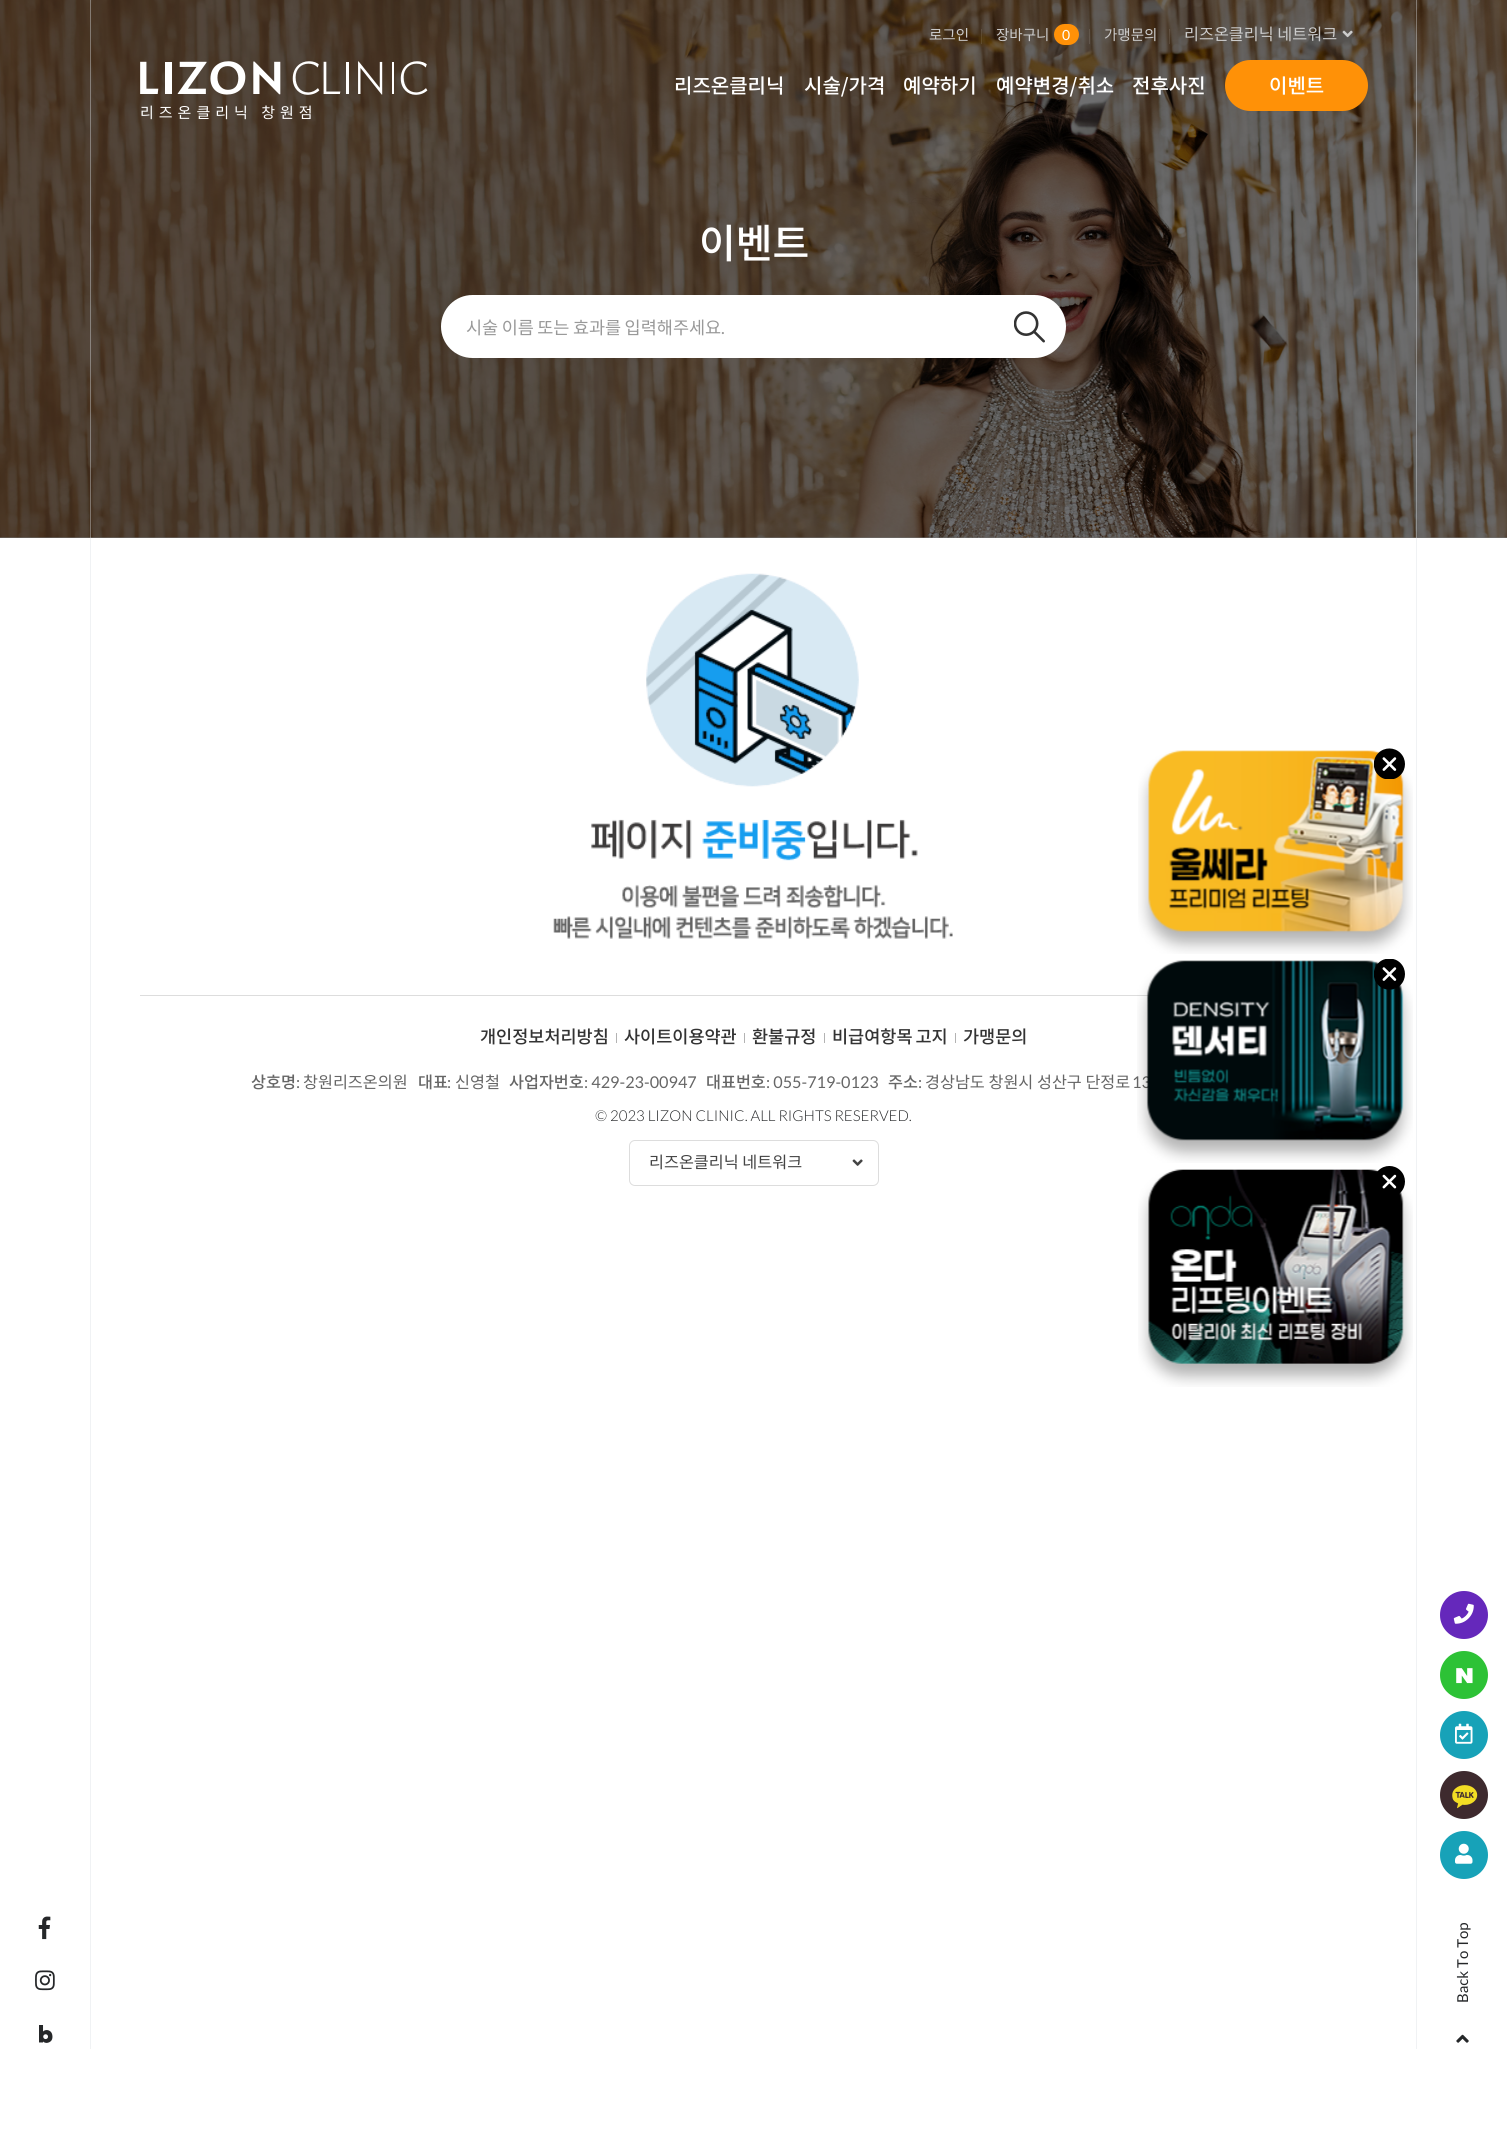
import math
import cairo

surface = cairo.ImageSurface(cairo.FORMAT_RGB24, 1507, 2138)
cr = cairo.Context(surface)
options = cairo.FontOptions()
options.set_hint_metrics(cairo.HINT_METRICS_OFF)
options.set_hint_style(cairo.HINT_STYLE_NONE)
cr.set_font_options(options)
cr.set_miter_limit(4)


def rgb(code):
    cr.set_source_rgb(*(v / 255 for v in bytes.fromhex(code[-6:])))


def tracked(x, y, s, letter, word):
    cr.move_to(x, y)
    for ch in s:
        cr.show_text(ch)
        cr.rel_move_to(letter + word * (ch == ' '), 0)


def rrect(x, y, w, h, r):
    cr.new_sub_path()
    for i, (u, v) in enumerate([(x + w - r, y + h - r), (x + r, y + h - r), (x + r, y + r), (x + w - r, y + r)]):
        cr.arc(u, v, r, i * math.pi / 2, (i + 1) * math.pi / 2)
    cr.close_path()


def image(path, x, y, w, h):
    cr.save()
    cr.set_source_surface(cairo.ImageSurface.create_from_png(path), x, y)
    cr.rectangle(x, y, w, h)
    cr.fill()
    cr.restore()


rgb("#ffffff")
cr.paint()
rgb("#737373")
cr.rectangle(0, 537, 1507, 1)
cr.fill()
image("img/3.png", 0, 0, 1507, 538)
cr.set_source_rgba(0.855, 0.878, 0.898, 0.4)
cr.rectangle(90, 0, 1, 2049)
cr.fill()
cr.rectangle(1416, 0, 1, 2049)
cr.fill()
cr.set_source_rgba(1, 1, 1, 0.1)
cr.rectangle(981, 29, 1, 15)
cr.fill()
rgb("#ff9107")
rrect(1055.5, 25.5, 22, 18, 9)
cr.fill_preserve()
cr.set_line_width(3)
cr.stroke()
cr.set_source_rgba(1, 1, 1, 0.1)
cr.rectangle(1089, 29, 1, 15)
cr.fill()
cr.rectangle(1169, 29, 1, 15)
cr.fill()
image("img/1.png", 1342, 30, 11, 8)
rgb("#ff9107")
rrect(1225, 60, 143, 51, 25.5)
cr.fill()
image("img/2.png", 140, 61, 288, 34)
rgb("#ffffff")
rrect(441, 295, 625, 63, 31.5)
cr.fill()
image("img/4.png", 1014, 311, 31, 32)
image("img/5.png", 553, 573, 400, 366)
for x, y, w, h, color in [
    (140, 995, 1010, 1, "#dddddd"),
    (616, 1033, 1, 10, "#b3b3b3"),
    (744, 1033, 1, 10, "#b3b3b3"),
    (824, 1033, 1, 10, "#b3b3b3"),
    (955, 1033, 1, 10, "#b3b3b3"),
]:
    rgb(color)
    cr.rectangle(x, y, w, h)
    cr.fill()
rrect(629.5, 1140.5, 249, 45, 5.5)
rgb("#dddddd")
cr.set_line_width(1)
cr.stroke()
image("img/6.png", 852, 1159, 11, 7)
image("img/7.png", 38, 1916, 13, 24)
image("img/8.png", 35, 1970, 20, 21)
image("img/9.png", 39, 2025, 14, 18)
rgb("#6528bb")
cr.arc(1464, 1615, 24, 0, 2 * math.pi)
cr.fill()
image("img/10.png", 1453, 1603, 21, 21)
rgb("#2dc236")
cr.arc(1464, 1675, 24, 0, 2 * math.pi)
cr.fill()
image("img/11.png", 1456, 1668, 17, 16)
rgb("#17a2b8")
cr.arc(1464, 1735, 24, 0, 2 * math.pi)
cr.fill()
image("img/12.png", 1455, 1723, 18, 21)
rgb("#3e2a2e")
cr.arc(1464, 1795, 24, 0, 2 * math.pi)
cr.fill()
image("img/13.png", 1452, 1785, 26, 24)
rgb("#17a2b8")
cr.arc(1464, 1855, 24, 0, 2 * math.pi)
cr.fill()
image("img/14.png", 1455, 1843, 18, 21)
image("img/15.png", 1456, 2034, 13, 9)
image("img/17.png", 1138, 750, 275, 204)
image("img/16.png", 1374, 748, 31, 31)
image("img/21.png", 1138, 1169, 275, 218)
image("img/20.png", 1377, 1166, 28, 28)
cr.select_font_face("Noto Sans KR")
cr.set_font_size(14.5)
rgb("#cccccc")
cr.move_to(929, 40)
cr.show_text("로그인")
cr.move_to(996, 40)
cr.show_text("장바구니")
cr.select_font_face("Lato")
cr.set_font_size(14)
rgb("#ffffff")
cr.move_to(1062, 40)
cr.show_text("0")
cr.select_font_face("Noto Sans KR")
cr.set_font_size(14.5)
rgb("#cccccc")
cr.move_to(1104, 40)
cr.show_text("가맹문의")
cr.set_font_size(16.25)
cr.move_to(1184, 40)
cr.show_text("리즈온클리닉 네트워크")
cr.select_font_face("Noto Sans KR Medium")
cr.set_font_size(20)
rgb("#ffffff")
for x, y, s in [
    (674, 93, "리즈온클리닉"),
    (804, 93, "시술/가격"),
    (903, 93, "예약하기"),
    (996, 93, "예약변경/취소"),
    (1132, 93, "전후사진"),
    (1269, 93, "이벤트"),
]:
    cr.move_to(x, y)
    cr.show_text(s)
cr.select_font_face("Noto Sans KR")
cr.set_font_size(15)
tracked(140, 118, "리즈온클리닉 창원점", 5, 0)
cr.select_font_face("Noto Sans KR Medium")
cr.set_font_size(40)
cr.move_to(699, 258)
cr.show_text("이벤트")
cr.select_font_face("Noto Sans KR")
cr.set_font_size(17.5)
rgb("#999999")
tracked(466, 334, "시술 이름 또는 효과를 입력해주세요", 0, -0.5)
cr.select_font_face("Lato")
cr.move_to(721, 334)
cr.show_text(".")
cr.select_font_face("Noto Sans KR Medium")
rgb("#333333")
for x, y, s in [
    (480, 1043, "개인정보처리방침"),
    (624, 1043, "사이트이용약관"),
    (752, 1043, "환불규정"),
]:
    cr.move_to(x, y)
    cr.show_text(s)
tracked(832, 1043, "비급여항목 고지", 0, -1)
cr.move_to(963, 1043)
cr.show_text("가맹문의")
cr.set_font_size(16.25)
rgb("#666666")
cr.move_to(251, 1088)
cr.show_text("상호명")
cr.select_font_face("Lato")
cr.move_to(296, 1088)
cr.show_text(":")
cr.select_font_face("Noto Sans KR")
cr.move_to(303, 1088)
cr.show_text("창원리즈온의원")
cr.select_font_face("Noto Sans KR Medium")
cr.move_to(418, 1088)
cr.show_text("대표")
cr.select_font_face("Lato")
cr.move_to(447, 1088)
cr.show_text(":")
cr.select_font_face("Noto Sans KR")
cr.move_to(455, 1088)
cr.show_text("신영철")
cr.select_font_face("Noto Sans KR Medium")
cr.move_to(509, 1088)
cr.show_text("사업자번호")
cr.select_font_face("Lato")
cr.move_to(584, 1088)
cr.show_text(": 429-23-00947")
cr.select_font_face("Noto Sans KR Medium")
cr.move_to(706, 1088)
cr.show_text("대표번호")
cr.select_font_face("Lato")
cr.move_to(766, 1088)
cr.show_text(": 055-719-0123")
cr.select_font_face("Noto Sans KR Medium")
cr.move_to(888, 1088)
cr.show_text("주소")
cr.select_font_face("Lato")
cr.move_to(918, 1088)
cr.show_text(":")
cr.select_font_face("Noto Sans KR")
cr.move_to(925, 1088)
cr.show_text("경상남도 창원시 성산구 단정로")
cr.select_font_face("Lato")
cr.move_to(1132, 1088)
cr.show_text("13")
cr.select_font_face("Lato Light")
cr.set_font_size(15)
rgb("#252729")
cr.move_to(595, 1121)
cr.show_text("© 2023 LIZON CLINIC. ALL RIGHTS RESERVED.")
cr.select_font_face("Noto Sans KR")
cr.set_font_size(16.25)
rgb("#444444")
cr.move_to(649, 1168)
cr.show_text("리즈온클리닉 네트워크")
cr.select_font_face("Lato")
cr.set_font_size(15)
rgb("#252729")
cr.save()
cr.translate(1468, 2003)
cr.rotate(-90 * math.pi / 180)
cr.move_to(0, 0)
cr.show_text("Back To Top")
cr.restore()
image("img/19.png", 1137, 960, 276, 203)
image("img/18.png", 1374, 959, 31, 31)
surface.write_to_png("page.png")
